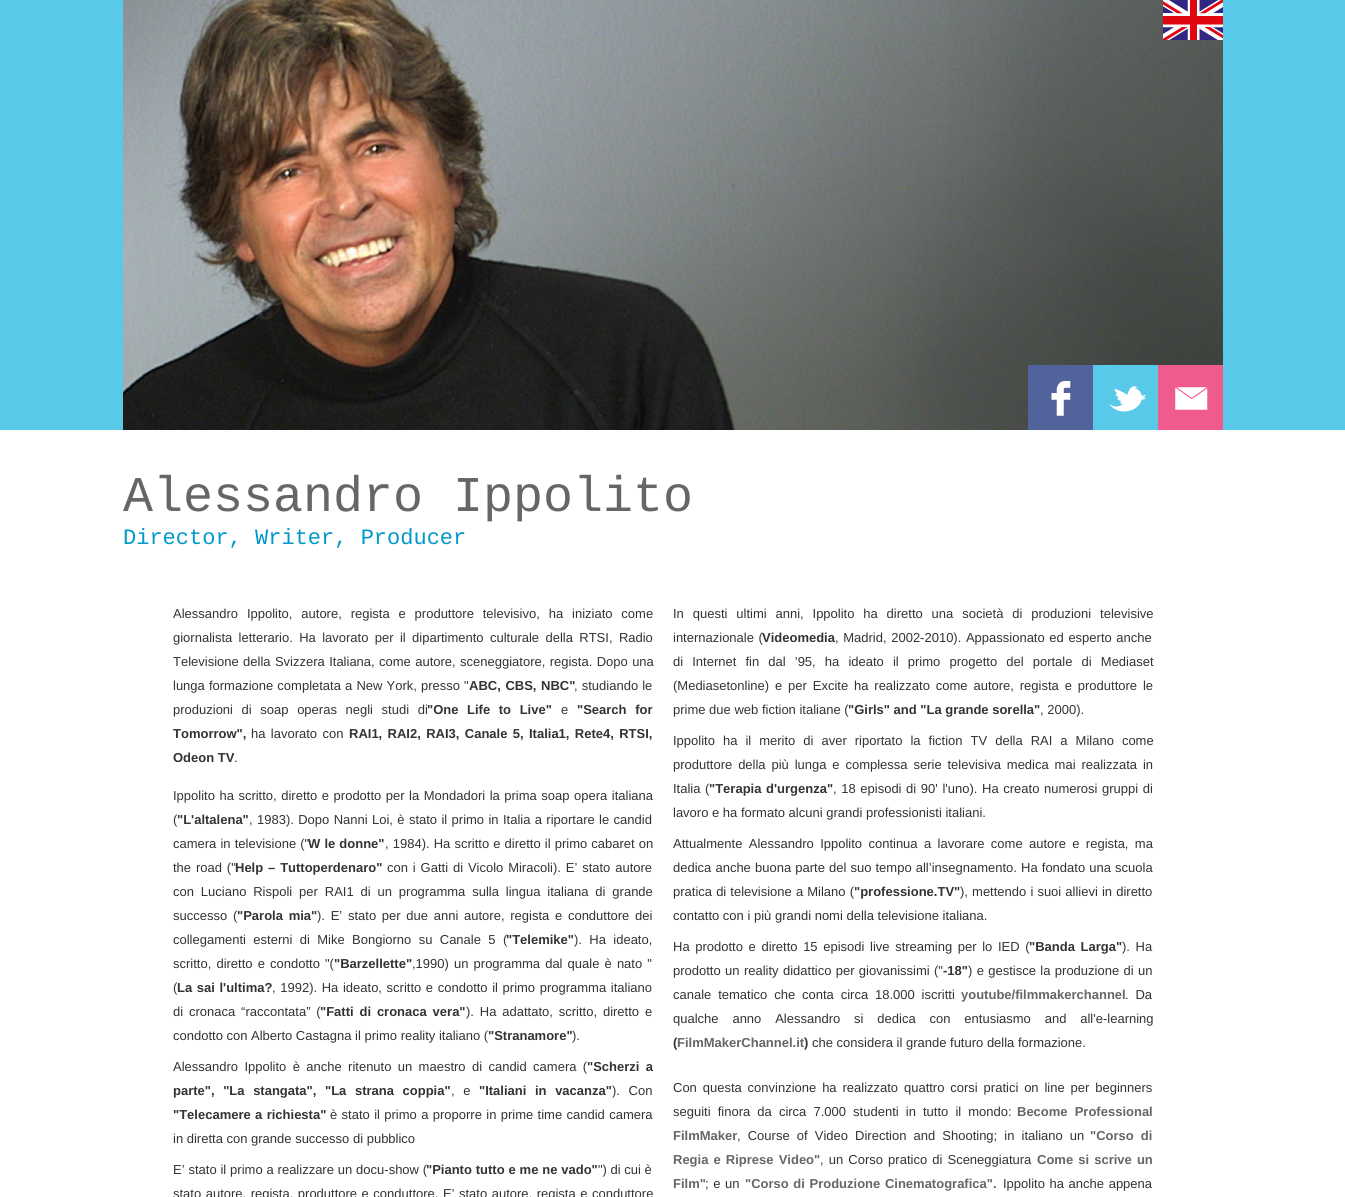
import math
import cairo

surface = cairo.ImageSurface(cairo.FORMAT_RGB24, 1345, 1197)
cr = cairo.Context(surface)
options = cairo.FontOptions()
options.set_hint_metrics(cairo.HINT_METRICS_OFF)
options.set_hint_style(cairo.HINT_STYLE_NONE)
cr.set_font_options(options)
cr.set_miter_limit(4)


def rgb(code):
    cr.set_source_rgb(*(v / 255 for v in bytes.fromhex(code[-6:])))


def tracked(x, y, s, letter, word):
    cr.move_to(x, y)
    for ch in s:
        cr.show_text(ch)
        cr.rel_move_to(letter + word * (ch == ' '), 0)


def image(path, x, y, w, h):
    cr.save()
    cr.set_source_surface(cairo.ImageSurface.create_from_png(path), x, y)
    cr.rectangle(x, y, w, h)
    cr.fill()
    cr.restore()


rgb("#ffffff")
cr.paint()
rgb("#58c9e9")
cr.rectangle(0, 0, 1345, 430)
cr.fill()
image("img/1.png", 123, 0, 1100, 430)
image("img/2.png", 1163, 0, 60, 40)
image("img/3.png", 1028, 365, 65, 65)
image("img/4.png", 1093, 365, 65, 65)
image("img/5.png", 1158, 365, 65, 65)
cr.select_font_face("Liberation Mono")
cr.set_font_size(50)
rgb("#666666")
cr.move_to(123, 511)
cr.show_text("Alessandro Ippolito")
cr.set_font_size(22)
rgb("#0099cc")
cr.move_to(123, 544)
cr.show_text("Director, Writer, Producer")
cr.select_font_face("Liberation Sans")
cr.set_font_size(13)
rgb("#333333")
tracked(173, 618, "Alessandro Ippolito, autore, regista e produttore televisivo, ha iniziato come", 0, 5.25)
tracked(173, 642, "giornalista letterario. Ha lavorato per il dipartimento culturale della RTSI, Radio", 0, 2.75)
tracked(173, 666, "Televisione della Svizzera Italiana, come autore, sceneggiatore, regista. Dopo una", 0, 0.75)
tracked(173, 690, "lunga formazione completata a New York, presso \"", 0, 0.5)
cr.select_font_face("Liberation Sans", cairo.FONT_SLANT_NORMAL, cairo.FONT_WEIGHT_BOLD)
tracked(469, 690, "ABC, CBS, NBC\"", 0, 1)
cr.select_font_face("Liberation Sans")
tracked(574, 690, ", studiando le", 0, 0.5)
tracked(173, 714, "produzioni di soap operas negli studi di", 0, 5)
cr.select_font_face("Liberation Sans", cairo.FONT_SLANT_NORMAL, cairo.FONT_WEIGHT_BOLD)
tracked(427, 714, "\"One Life to Live\"", 0, 5)
cr.select_font_face("Liberation Sans")
cr.move_to(561, 714)
cr.show_text("e")
cr.select_font_face("Liberation Sans", cairo.FONT_SLANT_NORMAL, cairo.FONT_WEIGHT_BOLD)
tracked(577, 714, "\"Search for", 0, 5)
cr.move_to(173, 738)
cr.show_text("Tomorrow\",")
cr.select_font_face("Liberation Sans")
tracked(251, 738, "ha lavorato con", 0, 1.75)
cr.select_font_face("Liberation Sans", cairo.FONT_SLANT_NORMAL, cairo.FONT_WEIGHT_BOLD)
tracked(349, 738, "RAI1, RAI2, RAI3, Canale 5, Italia1, Rete4, RTSI,", 0, 1.75)
cr.move_to(173, 762)
cr.show_text("Odeon TV")
cr.select_font_face("Liberation Sans")
cr.move_to(234, 762)
cr.show_text(".")
tracked(173, 800, "Ippolito ha scritto, diretto e prodotto per la Mondadori la prima soap opera italiana", 0, 0.9)
cr.move_to(173, 824)
cr.show_text("(")
cr.select_font_face("Liberation Sans", cairo.FONT_SLANT_NORMAL, cairo.FONT_WEIGHT_BOLD)
cr.move_to(177, 824)
cr.show_text("\"L'altalena\"")
cr.select_font_face("Liberation Sans")
tracked(249, 824, ", 1983). Dopo Nanni Loi, è stato il primo in Italia a riportare le candid", 0, 0.75)
tracked(173, 848, "camera in televisione (\"", 0, 0.5)
cr.select_font_face("Liberation Sans", cairo.FONT_SLANT_NORMAL, cairo.FONT_WEIGHT_BOLD)
tracked(308, 848, "W le donne\"", 0, 0.5)
cr.select_font_face("Liberation Sans")
tracked(385, 848, ", 1984). Ha scritto e diretto il primo cabaret on", 0, 0.5)
tracked(173, 872, "the road (\"", 0, 1.25)
cr.select_font_face("Liberation Sans", cairo.FONT_SLANT_NORMAL, cairo.FONT_WEIGHT_BOLD)
tracked(235, 872, "Help – Tuttoperdenaro\"", 0, 1.25)
cr.select_font_face("Liberation Sans")
tracked(387, 872, "con i Gatti di Vicolo Miracoli). E’ stato autore", 0, 1.25)
tracked(173, 896, "con Luciano Rispoli per RAI1 di un programma sulla lingua italiana di grande", 0, 3.25)
tracked(173, 920, "successo (", 0, 2.1)
cr.select_font_face("Liberation Sans", cairo.FONT_SLANT_NORMAL, cairo.FONT_WEIGHT_BOLD)
tracked(237, 920, "\"Parola mia\"", 0, 2.1)
cr.select_font_face("Liberation Sans")
tracked(317, 920, "). E’ stato per due anni autore, regista e conduttore dei", 0, 2.1)
tracked(173, 944, "collegamenti esterni di Mike Bongiorno su Canale 5 (", 0, 3.75)
cr.select_font_face("Liberation Sans", cairo.FONT_SLANT_NORMAL, cairo.FONT_WEIGHT_BOLD)
cr.move_to(506, 944)
cr.show_text("\"Telemike\"")
cr.select_font_face("Liberation Sans")
tracked(574, 944, "). Ha ideato,", 0, 3.75)
tracked(173, 968, "scritto, diretto e condotto \"(", 0, 1.5)
cr.select_font_face("Liberation Sans", cairo.FONT_SLANT_NORMAL, cairo.FONT_WEIGHT_BOLD)
cr.move_to(334, 968)
cr.show_text("\"Barzellette\"")
cr.select_font_face("Liberation Sans")
cr.move_to(412, 968)
cr.show_text(",1990)")
tracked(454, 968, "un programma dal quale è nato \"", 0, 1.5)
cr.move_to(173, 992)
cr.show_text("(")
cr.select_font_face("Liberation Sans", cairo.FONT_SLANT_NORMAL, cairo.FONT_WEIGHT_BOLD)
tracked(177, 992, "La sai l'ultima?", 0, 1)
cr.select_font_face("Liberation Sans")
tracked(272, 992, ", 1992). Ha ideato, scritto e condotto il primo programma italiano", 0, 1)
tracked(173, 1016, "di cronaca “raccontata” (", 0, 2.25)
cr.select_font_face("Liberation Sans", cairo.FONT_SLANT_NORMAL, cairo.FONT_WEIGHT_BOLD)
tracked(320, 1016, "\"Fatti di cronaca vera\"", 0, 2.25)
cr.select_font_face("Liberation Sans")
tracked(466, 1016, "). Ha adattato, scritto, diretto e", 0, 2.25)
cr.move_to(173, 1040)
cr.show_text("condotto con Alberto Castagna il primo reality italiano (")
cr.select_font_face("Liberation Sans", cairo.FONT_SLANT_NORMAL, cairo.FONT_WEIGHT_BOLD)
cr.move_to(488, 1040)
cr.show_text("\"Stranamore\"")
cr.select_font_face("Liberation Sans")
cr.move_to(572, 1040)
cr.show_text(").")
tracked(173, 1071, "Alessandro Ippolito è anche ritenuto un maestro di candid camera (", 0, 2.75)
cr.select_font_face("Liberation Sans", cairo.FONT_SLANT_NORMAL, cairo.FONT_WEIGHT_BOLD)
tracked(587, 1071, "\"Scherzi a", 0, 2.75)
tracked(173, 1095, "parte\", \"La stangata\", \"La strana coppia\"", 0, 5)
cr.select_font_face("Liberation Sans")
tracked(451, 1095, ", e", 0, 5)
cr.select_font_face("Liberation Sans", cairo.FONT_SLANT_NORMAL, cairo.FONT_WEIGHT_BOLD)
tracked(479, 1095, "\"Italiani in vacanza\"", 0, 5)
cr.select_font_face("Liberation Sans")
tracked(612, 1095, "). Con", 0, 5)
cr.select_font_face("Liberation Sans", cairo.FONT_SLANT_NORMAL, cairo.FONT_WEIGHT_BOLD)
tracked(173, 1119, "\"Telecamere a richiesta\"", 0, 0.75)
cr.select_font_face("Liberation Sans")
tracked(330, 1119, "è stato il primo a proporre in prime time candid camera", 0, 0.75)
cr.move_to(173, 1143)
cr.show_text("in diretta con grande successo di pubblico")
tracked(173, 1174, "E’ stato il primo a realizzare un docu-show (", 0, 0.25)
cr.select_font_face("Liberation Sans", cairo.FONT_SLANT_NORMAL, cairo.FONT_WEIGHT_BOLD)
tracked(426, 1174, "\"Pianto tutto e me ne vado\"", 0, 0.25)
cr.select_font_face("Liberation Sans")
cr.move_to(598, 1174)
cr.show_text("\") di cui è")
tracked(173, 1198, "stato autore, regista, produttore e conduttore. E’ stato autore, regista e conduttore", 0, 0.9)
tracked(673, 618, "In questi ultimi anni, Ippolito ha diretto una società di produzioni televisive", 0, 5.25)
tracked(673, 642, "internazionale (", 0, 1)
cr.select_font_face("Liberation Sans", cairo.FONT_SLANT_NORMAL, cairo.FONT_WEIGHT_BOLD)
cr.move_to(762, 642)
cr.show_text("Videomedia")
cr.select_font_face("Liberation Sans")
tracked(835, 642, ", Madrid, 2002-2010). Appassionato ed esperto anche", 0, 1)
tracked(673, 666, "di Internet fin dal ’95, ha ideato il primo progetto del portale di Mediaset", 0, 5.5)
tracked(673, 690, "(Mediasetonline) e per Excite ha realizzato come autore, regista e produttore le", 0, 2.25)
cr.move_to(673, 714)
cr.show_text("prime due web fiction italiane (")
cr.select_font_face("Liberation Sans", cairo.FONT_SLANT_NORMAL, cairo.FONT_WEIGHT_BOLD)
cr.move_to(848, 714)
cr.show_text("\"Girls\" and \"La grande sorella\"")
cr.select_font_face("Liberation Sans")
cr.move_to(1040, 714)
cr.show_text(", 2000).")
tracked(673, 745, "Ippolito ha il merito di aver riportato la fiction TV della RAI a Milano come", 0, 4.4)
tracked(673, 769, "produttore della più lunga e complessa serie televisiva medica mai realizzata in", 0, 2.25)
tracked(673, 793, "Italia (", 0, 1)
cr.select_font_face("Liberation Sans", cairo.FONT_SLANT_NORMAL, cairo.FONT_WEIGHT_BOLD)
tracked(709, 793, "\"Terapia d'urgenza\"", 0, 1)
cr.select_font_face("Liberation Sans")
tracked(833, 793, ", 18 episodi di 90' l'uno). Ha creato numerosi gruppi di", 0, 1)
cr.move_to(673, 817)
cr.show_text("lavoro e ha formato alcuni grandi professionisti italiani.")
tracked(673, 848, "Attualmente Alessandro Ippolito continua a lavorare come autore e regista, ma", 0, 2.75)
tracked(673, 872, "dedica anche buona parte del suo tempo all’insegnamento. Ha fondato una scuola", 0, 0.5)
tracked(673, 896, "pratica di televisione a Milano (", 0, 0.5)
cr.select_font_face("Liberation Sans", cairo.FONT_SLANT_NORMAL, cairo.FONT_WEIGHT_BOLD)
cr.move_to(854, 896)
cr.show_text("\"professione.TV\"")
cr.select_font_face("Liberation Sans")
tracked(960, 896, "), mettendo i suoi allievi in diretto", 0, 0.5)
cr.move_to(673, 920)
cr.show_text("contatto con i più grandi nomi della televisione italiana.")
tracked(673, 951, "Ha prodotto e diretto 15 episodi live streaming per lo IED (", 0, 2)
cr.select_font_face("Liberation Sans", cairo.FONT_SLANT_NORMAL, cairo.FONT_WEIGHT_BOLD)
tracked(1029, 951, "\"Banda Larga\"", 0, 2)
cr.select_font_face("Liberation Sans")
tracked(1122, 951, "). Ha", 0, 2)
tracked(673, 975, "prodotto un reality didattico per giovanissimi (\"", 0, 0.75)
cr.select_font_face("Liberation Sans", cairo.FONT_SLANT_NORMAL, cairo.FONT_WEIGHT_BOLD)
cr.move_to(943, 975)
cr.show_text("-18\"")
cr.select_font_face("Liberation Sans")
tracked(968, 975, ") e gestisce la produzione di un", 0, 0.75)
tracked(673, 999, "canale tematico che conta circa 18.000 iscritti", 0, 3.25)
cr.select_font_face("Liberation Sans", cairo.FONT_SLANT_NORMAL, cairo.FONT_WEIGHT_BOLD)
rgb("#666666")
cr.move_to(961, 999)
cr.show_text("youtube/filmmakerchannel")
cr.select_font_face("Liberation Sans")
rgb("#333333")
tracked(1125, 999, ". Da", 0, 3.25)
tracked(673, 1023, "qualche anno Alessandro si dedica con entusiasmo and all'e-learning", 0, 10.25)
cr.select_font_face("Liberation Sans", cairo.FONT_SLANT_NORMAL, cairo.FONT_WEIGHT_BOLD)
cr.move_to(673, 1047)
cr.show_text("(")
rgb("#666666")
cr.move_to(677, 1047)
cr.show_text("FilmMakerChannel.it")
rgb("#333333")
cr.move_to(804, 1047)
cr.show_text(")")
cr.select_font_face("Liberation Sans")
cr.move_to(812, 1047)
cr.show_text("che considera il grande futuro della formazione.")
tracked(673, 1092, "Con questa convinzione ha realizzato quattro corsi pratici on line per beginners", 0, 2.25)
tracked(673, 1116, "seguiti finora da circa 7.000 studenti in tutto il mondo:", 0, 3.5)
cr.select_font_face("Liberation Sans", cairo.FONT_SLANT_NORMAL, cairo.FONT_WEIGHT_BOLD)
rgb("#666666")
tracked(1017, 1116, "Become Professional", 0, 3.5)
cr.move_to(673, 1140)
cr.show_text("FilmMaker")
cr.select_font_face("Liberation Sans")
rgb("#333333")
tracked(737, 1140, ", Course of Video Direction and Shooting; in italiano un", 0, 3.5)
cr.select_font_face("Liberation Sans", cairo.FONT_SLANT_NORMAL, cairo.FONT_WEIGHT_BOLD)
rgb("#666666")
tracked(1090, 1140, "\"Corso di", 0, 3.5)
tracked(673, 1164, "Regia e Riprese Video\"", 0, 1.5)
cr.select_font_face("Liberation Sans")
rgb("#333333")
tracked(820, 1164, ", un Corso pratico di Sceneggiatura", 0, 1.5)
cr.select_font_face("Liberation Sans", cairo.FONT_SLANT_NORMAL, cairo.FONT_WEIGHT_BOLD)
rgb("#666666")
tracked(1037, 1164, "Come si scrive un", 0, 1.5)
cr.move_to(673, 1188)
cr.show_text("Film\"")
cr.select_font_face("Liberation Sans")
rgb("#333333")
tracked(705, 1188, "; e un", 0, 1)
cr.select_font_face("Liberation Sans", cairo.FONT_SLANT_NORMAL, cairo.FONT_WEIGHT_BOLD)
rgb("#666666")
tracked(745, 1188, "\"Corso di Produzione Cinematografica\".", 0, 1)
cr.select_font_face("Liberation Sans")
rgb("#333333")
tracked(1003, 1188, "Ippolito ha anche appena", 0, 1)
surface.write_to_png("page.png")
